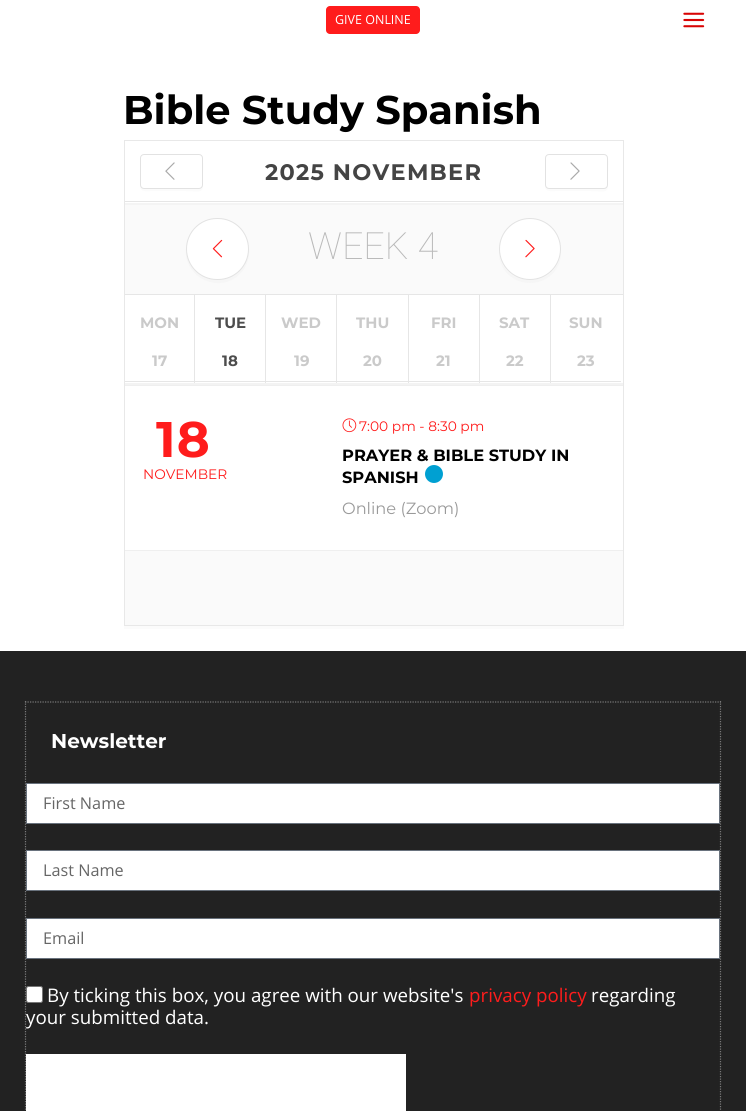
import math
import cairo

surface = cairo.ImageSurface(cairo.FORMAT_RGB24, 746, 1111)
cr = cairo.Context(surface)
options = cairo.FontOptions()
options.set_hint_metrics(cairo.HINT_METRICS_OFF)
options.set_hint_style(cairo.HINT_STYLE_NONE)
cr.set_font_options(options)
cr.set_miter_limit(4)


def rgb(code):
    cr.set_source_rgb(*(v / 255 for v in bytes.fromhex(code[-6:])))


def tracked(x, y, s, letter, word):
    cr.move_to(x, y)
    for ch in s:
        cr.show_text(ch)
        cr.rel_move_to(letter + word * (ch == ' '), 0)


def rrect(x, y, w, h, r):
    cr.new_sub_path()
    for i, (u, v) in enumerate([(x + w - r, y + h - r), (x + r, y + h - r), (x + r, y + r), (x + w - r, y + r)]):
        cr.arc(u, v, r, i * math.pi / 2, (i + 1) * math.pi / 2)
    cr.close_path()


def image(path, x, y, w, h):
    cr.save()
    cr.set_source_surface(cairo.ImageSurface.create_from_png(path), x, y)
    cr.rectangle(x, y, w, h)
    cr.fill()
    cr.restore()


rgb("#ffffff")
cr.paint()
rgb("#ff1c1c")
rrect(326, 6, 94, 28, 4)
cr.fill()
image("img/1.png", 683, 12, 22, 16)
rgb("#fbfbfb")
cr.new_path()
cr.move_to(124, 626)
cr.line_to(124, 629)
cr.line_to(624, 629)
cr.line_to(624, 143)
cr.line_to(624, 626)
cr.close_path()
cr.fill()
cr.rectangle(124.5, 140.5, 499, 485)
rgb("#e8e8e8")
cr.set_line_width(1)
cr.stroke()
rgb("#f4f4f4")
cr.rectangle(125, 203, 498, 2)
cr.fill()
rgb("#fbfbfb")
cr.new_path()
cr.move_to(140, 185)
cr.curve_to(140, 193, 146, 191, 153, 191)
cr.line_to(181, 191)
cr.curve_to(205, 191, 203, 196, 203, 174)
cr.curve_to(203, 170, 204, 161, 202, 158)
cr.line_to(202, 185)
cr.curve_to(202, 187, 201, 189, 199, 189)
cr.line_to(144, 189)
cr.curve_to(142, 189, 140, 187, 140, 185)
cr.close_path()
cr.fill()
rgb("#ffffff")
rrect(140.5, 154.5, 62, 34, 3.5)
cr.fill_preserve()
rgb("#e2e2e2")
cr.stroke()
image("img/2.png", 165, 162, 10, 18)
rgb("#e6e6e6")
cr.rectangle(125, 201, 498, 1)
cr.fill()
rgb("#fbfbfb")
cr.new_path()
cr.move_to(545, 185)
cr.curve_to(545, 193, 551, 191, 558, 191)
cr.line_to(586, 191)
cr.curve_to(610, 191, 608, 196, 608, 174)
cr.curve_to(608, 170, 609, 161, 608, 158)
cr.line_to(608, 185)
cr.curve_to(608, 187, 606, 189, 604, 189)
cr.line_to(549, 189)
cr.curve_to(547, 189, 545, 187, 545, 185)
cr.close_path()
cr.fill()
rrect(545.5, 154.5, 62, 34, 3.5)
rgb("#e2e2e2")
cr.stroke()
image("img/3.png", 570, 162, 10, 18)
rgb("#fafafa")
cr.rectangle(125, 205, 498, 89)
cr.fill()
rgb("#f6f6f6")
cr.new_path()
cr.move_to(186, 247)
cr.curve_to(182, 280, 225, 297, 244, 269)
cr.curve_to(248, 263, 250, 255, 249, 247)
cr.curve_to(249, 254, 247, 261, 243, 266)
cr.curve_to(226, 292, 185, 278, 186, 247)
cr.close_path()
cr.fill()
rgb("#ffffff")
rrect(186.5, 218.5, 62, 61, 30.5)
cr.fill_preserve()
rgb("#e2e2e2")
cr.stroke()
image("img/4.png", 212, 239, 11, 19)
rgb("#f6f6f6")
cr.new_path()
cr.move_to(561, 253)
cr.curve_to(556, 289, 504, 289, 499, 253)
cr.curve_to(499, 270, 513, 283, 530, 283)
cr.curve_to(547, 283, 561, 270, 561, 253)
cr.close_path()
cr.fill()
rgb("#ffffff")
cr.arc(530, 249, 30.5, 0, 2 * math.pi)
cr.fill_preserve()
rgb("#e2e2e2")
cr.stroke()
image("img/5.png", 525, 239, 10, 19)
for x, y, w, h, color in [
    (125, 294, 498, 1, "#e6e6e6"),
    (125, 383, 498, 2, "#f3f3f3"),
    (194, 295, 1, 88, "#e6e6e6"),
    (125, 381, 70, 1, "#e6e6e6"),
    (265, 295, 1, 88, "#e6e6e6"),
    (195, 381, 71, 1, "#e6e6e6"),
    (336, 295, 1, 88, "#e6e6e6"),
    (266, 381, 72, 1, "#e6e6e6"),
    (408, 295, 1, 88, "#e6e6e6"),
    (338, 381, 71, 1, "#e6e6e6"),
    (479, 295, 1, 88, "#e6e6e6"),
    (409, 381, 71, 1, "#e6e6e6"),
    (550, 295, 1, 88, "#e6e6e6"),
    (480, 381, 141, 1, "#e6e6e6"),
    (125, 385, 498, 1, "#efefef"),
]:
    rgb(color)
    cr.rectangle(x, y, w, h)
    cr.fill()
image("img/6.png", 342, 418, 15, 15)
rgb("#00a0d2")
cr.arc(434, 474, 9, 0, 2 * math.pi)
cr.fill()
for x, y, w, h, color in [
    (125, 551, 498, 74, "#fafafa"),
    (125, 550, 498, 1, "#efefef"),
    (0, 651, 746, 460, "#222222"),
]:
    rgb(color)
    cr.rectangle(x, y, w, h)
    cr.fill()
cr.new_path()
cr.move_to(25, 702)
cr.line_to(721, 702)
rgb("#7a7a7a")
cr.set_line_width(1.2)
cr.set_dash([1.25, 1.25])
cr.stroke()
cr.new_path()
cr.move_to(720.5, 701)
cr.line_to(720.5, 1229)
cr.stroke()
cr.new_path()
cr.move_to(25.5, 701)
cr.line_to(25.5, 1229)
cr.stroke()
rgb("#ffffff")
cr.rectangle(26.5, 783.5, 693, 40)
cr.fill_preserve()
rgb("#69727d")
cr.set_line_width(1)
cr.set_dash([])
cr.stroke()
rgb("#ffffff")
cr.rectangle(26.5, 850.5, 693, 40)
cr.fill_preserve()
rgb("#69727d")
cr.stroke()
rgb("#ffffff")
cr.rectangle(26.5, 918.5, 693, 40)
cr.fill_preserve()
rgb("#69727d")
cr.stroke()
rgb("#ffffff")
rrect(26.5, 986.5, 16, 16, 2)
cr.fill_preserve()
rgb("#767676")
cr.stroke()
rgb("#ffffff")
cr.rectangle(26, 1054, 380, 57)
cr.fill()
cr.select_font_face("Open Sans")
cr.set_font_size(12.5)
cr.move_to(335, 24)
cr.show_text("GIVE ONLINE")
cr.select_font_face("Montserrat", cairo.FONT_SLANT_NORMAL, cairo.FONT_WEIGHT_BOLD)
cr.set_font_size(40)
rgb("#000000")
cr.move_to(123, 124)
cr.show_text("Bible Study Spanish")
cr.set_font_size(22.5)
rgb("#444444")
tracked(265, 180, "2025 NOVEMBER", 1.25, 0)
cr.select_font_face("Roboto Thin")
cr.set_font_size(37.5)
rgb("#b9b9b9")
cr.move_to(308, 259)
cr.show_text("WEEK 4")
cr.select_font_face("Montserrat", cairo.FONT_SLANT_NORMAL, cairo.FONT_WEIGHT_BOLD)
cr.set_font_size(15)
rgb("#cacaca")
cr.move_to(140, 328)
cr.show_text("MON")
cr.move_to(152, 366)
cr.show_text("17")
rgb("#4d4d4d")
cr.move_to(215, 328)
cr.show_text("TUE")
cr.move_to(222, 366)
cr.show_text("18")
rgb("#cacaca")
for x, y, s in [
    (281, 328, "WED"),
    (294, 366, "19"),
    (356, 328, "THU"),
    (363, 366, "20"),
    (431, 328, "FRI"),
    (436, 366, "21"),
    (499, 328, "SAT"),
    (506, 366, "22"),
    (569, 328, "SUN"),
    (577, 366, "23"),
]:
    cr.move_to(x, y)
    cr.show_text(s)
cr.set_font_size(50)
rgb("#ff1c1c")
tracked(156, 457, "18", 1.25, 0)
cr.select_font_face("Montserrat")
cr.set_font_size(13.75)
cr.move_to(143, 479)
cr.show_text("NOVEMBER")
cr.move_to(359, 431)
cr.show_text("7:00 pm - 8:30 pm")
cr.select_font_face("Montserrat", cairo.FONT_SLANT_NORMAL, cairo.FONT_WEIGHT_BOLD)
cr.set_font_size(16.25)
rgb("#000000")
cr.move_to(342, 461)
cr.show_text("PRAYER & BIBLE STUDY IN")
cr.move_to(342, 483)
cr.show_text("SPANISH")
cr.select_font_face("Montserrat")
rgb("#9a9a9a")
cr.move_to(342, 514)
cr.show_text("Online (Zoom)")
cr.select_font_face("Montserrat", cairo.FONT_SLANT_NORMAL, cairo.FONT_WEIGHT_BOLD)
cr.set_font_size(20)
rgb("#ffffff")
cr.move_to(51, 748)
cr.show_text("Newsletter")
cr.select_font_face("Open Sans")
cr.set_font_size(16.25)
rgb("#666666")
for x, y, s in [
    (43, 809, "First Name"),
    (43, 876, "Last Name"),
    (43, 944, "Email"),
]:
    cr.move_to(x, y)
    cr.show_text(s)
cr.set_font_size(18.75)
rgb("#ffffff")
cr.move_to(47, 1002)
cr.show_text("By ticking this box, you agree with our website's")
rgb("#ff1c1c")
cr.move_to(469, 1002)
cr.show_text("privacy policy")
rgb("#ffffff")
cr.move_to(591, 1002)
cr.show_text("regarding")
cr.move_to(26, 1024)
cr.show_text("your submitted data.")
surface.write_to_png("page.png")
